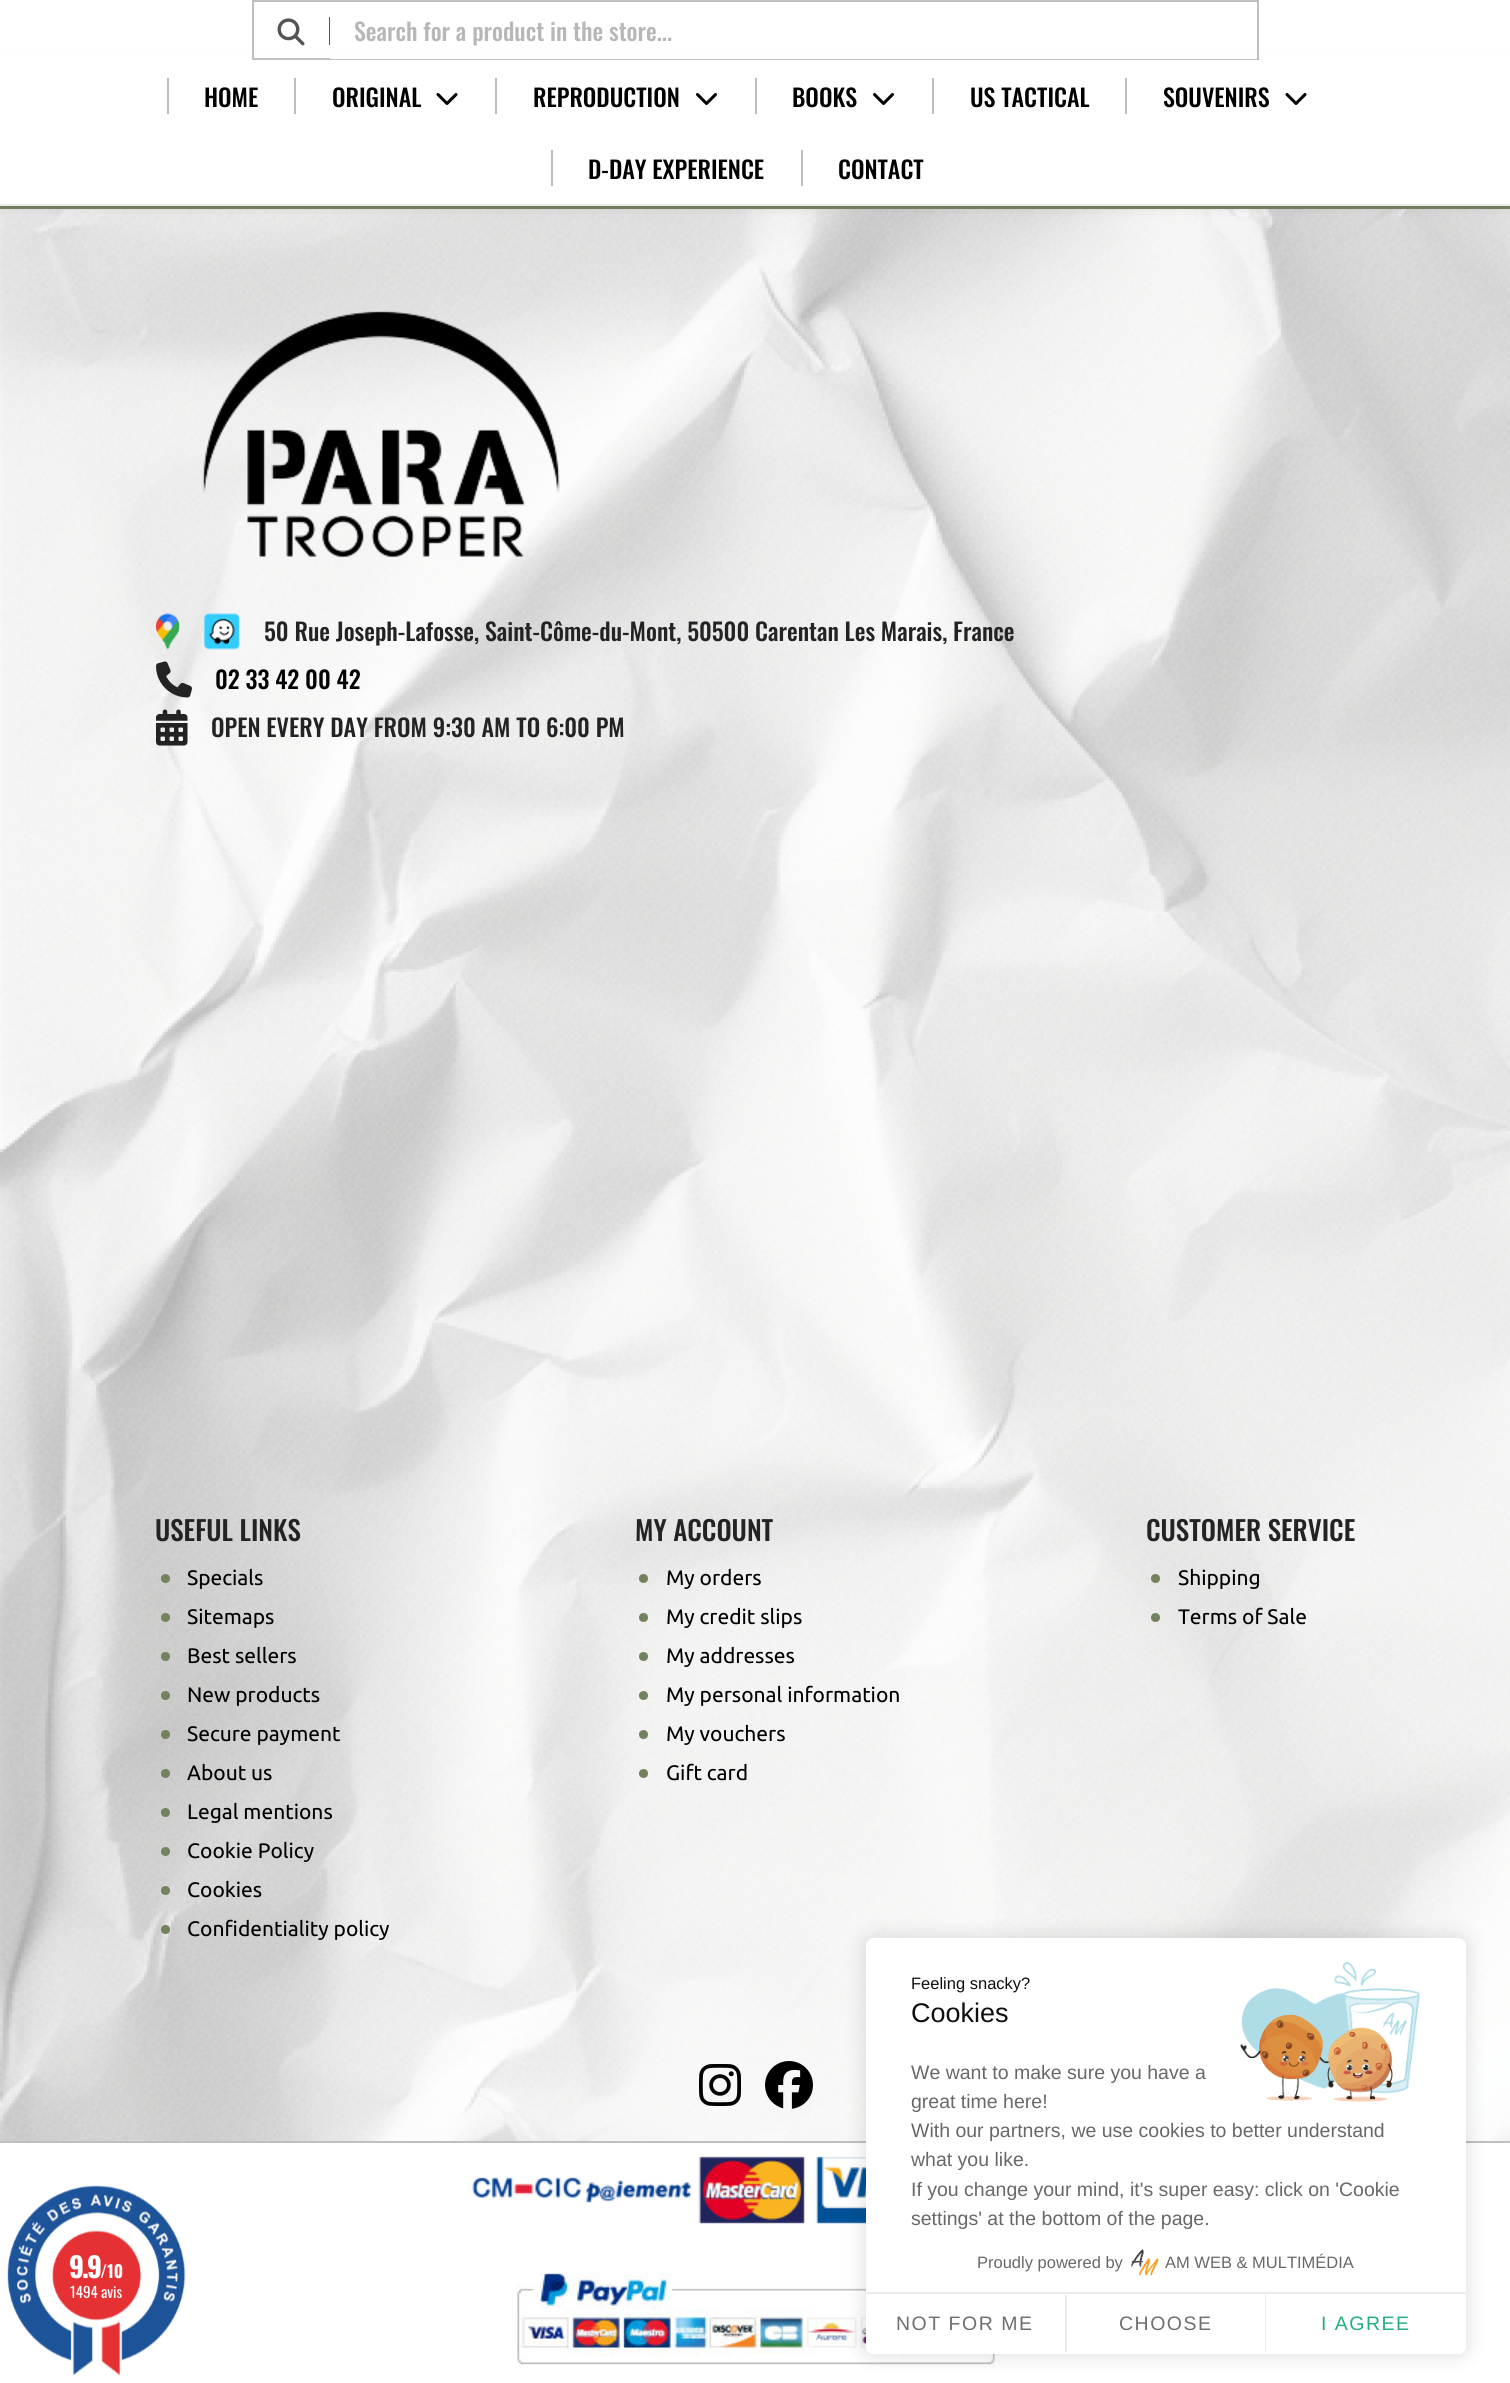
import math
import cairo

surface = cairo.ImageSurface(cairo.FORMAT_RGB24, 1510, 2383)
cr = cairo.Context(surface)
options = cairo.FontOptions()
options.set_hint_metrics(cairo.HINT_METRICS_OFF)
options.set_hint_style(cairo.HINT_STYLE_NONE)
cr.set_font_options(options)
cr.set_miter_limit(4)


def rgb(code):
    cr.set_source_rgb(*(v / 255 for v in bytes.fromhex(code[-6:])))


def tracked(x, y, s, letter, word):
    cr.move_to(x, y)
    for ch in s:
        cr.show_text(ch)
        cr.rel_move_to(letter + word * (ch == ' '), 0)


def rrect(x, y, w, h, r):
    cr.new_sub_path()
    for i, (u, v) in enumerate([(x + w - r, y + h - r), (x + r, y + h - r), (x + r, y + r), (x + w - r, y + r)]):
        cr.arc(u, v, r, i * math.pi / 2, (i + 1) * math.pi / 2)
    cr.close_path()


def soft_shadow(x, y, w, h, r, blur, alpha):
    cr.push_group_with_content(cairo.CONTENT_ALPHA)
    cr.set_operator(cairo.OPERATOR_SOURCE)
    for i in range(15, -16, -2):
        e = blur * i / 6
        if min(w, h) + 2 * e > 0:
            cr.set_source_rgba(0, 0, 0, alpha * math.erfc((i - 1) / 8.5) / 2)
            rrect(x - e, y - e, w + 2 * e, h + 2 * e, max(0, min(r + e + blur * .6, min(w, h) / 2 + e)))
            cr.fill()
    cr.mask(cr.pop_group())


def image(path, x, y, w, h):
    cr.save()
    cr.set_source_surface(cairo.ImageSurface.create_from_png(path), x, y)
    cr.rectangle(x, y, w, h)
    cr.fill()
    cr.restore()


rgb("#ffffff")
cr.paint()
image("img/4.png", 0, 209, 1510, 1932)
rgb("#73825e")
cr.rectangle(0, 206, 1510, 3)
cr.fill()
rgb("#636363")
soft_shadow(0, 63, 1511, 144, 0, 6, 0.2)
rgb("#ffffff")
cr.rectangle(0, 55, 1510, 149)
cr.fill()
cr.rectangle(253, 1, 1005, 58)
rgb("#bfbfbf")
cr.stroke()
image("img/1.png", 277, 18, 28, 28)
for x, y, w, h, color in [
    (329, 17, 1, 28, "#545454"),
    (330, 58, 927, 1, "#ffffff"),
    (167, 78, 2, 36, "#bfbfbf"),
    (294, 78, 2, 36, "#bfbfbf"),
]:
    rgb(color)
    cr.rectangle(x, y, w, h)
    cr.fill()
image("img/2.png", 436, 93, 22, 12)
cr.rectangle(495, 78, 2, 36)
cr.fill()
image("img/3.png", 696, 93, 21, 12)
cr.rectangle(755, 78, 2, 36)
cr.fill()
image("img/3.png", 873, 93, 21, 12)
cr.rectangle(932, 78, 2, 36)
cr.fill()
cr.rectangle(1125, 78, 2, 36)
cr.fill()
image("img/2.png", 1285, 93, 22, 12)
cr.rectangle(551, 150, 2, 36)
cr.fill()
cr.rectangle(801, 150, 2, 36)
cr.fill()
image("img/5.png", 202, 311, 358, 247)
image("img/6.png", 156, 613, 24, 37)
image("img/7.png", 204, 613, 36, 37)
image("img/8.png", 156, 661, 36, 37)
image("img/9.png", 156, 709, 32, 37)
rgb("#73825e")
cr.arc(165.5, 1578.5, 4.5, 0, 2 * math.pi)
cr.fill()
cr.arc(165.5, 1617.5, 4.5, 0, 2 * math.pi)
cr.fill()
cr.arc(165.5, 1656.5, 4.5, 0, 2 * math.pi)
cr.fill()
cr.arc(165.5, 1695.5, 4.5, 0, 2 * math.pi)
cr.fill()
cr.arc(165.5, 1734.5, 4.5, 0, 2 * math.pi)
cr.fill()
cr.arc(165.5, 1773.5, 4.5, 0, 2 * math.pi)
cr.fill()
cr.arc(165.5, 1812.5, 4.5, 0, 2 * math.pi)
cr.fill()
cr.arc(165.5, 1851.5, 4.5, 0, 2 * math.pi)
cr.fill()
cr.arc(165.5, 1890.5, 4.5, 0, 2 * math.pi)
cr.fill()
cr.arc(165.5, 1929.5, 4.5, 0, 2 * math.pi)
cr.fill()
cr.arc(643.5, 1578.5, 4.5, 0, 2 * math.pi)
cr.fill()
cr.arc(643.5, 1617.5, 4.5, 0, 2 * math.pi)
cr.fill()
cr.arc(643.5, 1656.5, 4.5, 0, 2 * math.pi)
cr.fill()
cr.arc(643.5, 1695.5, 4.5, 0, 2 * math.pi)
cr.fill()
cr.arc(643.5, 1734.5, 4.5, 0, 2 * math.pi)
cr.fill()
cr.arc(643.5, 1773.5, 4.5, 0, 2 * math.pi)
cr.fill()
cr.arc(1155.5, 1578.5, 4.5, 0, 2 * math.pi)
cr.fill()
cr.arc(1155.5, 1617.5, 4.5, 0, 2 * math.pi)
cr.fill()
image("img/10.png", 699, 2064, 42, 42)
image("img/11.png", 765, 2061, 48, 48)
rgb("#bfbfbf")
cr.rectangle(0, 2141, 1510, 2)
cr.fill()
image("img/12.png", 472, 2156, 394, 68)
image("img/13.png", 516, 2272, 479, 96)
image("img/14.png", 7, 2185, 179, 191)
rgb("#000000")
soft_shadow(866, 1938, 600, 416, 8, 11, 0.14)
rgb("#ffffff")
rrect(866, 1938, 600, 416, 8)
cr.fill()
image("img/15.png", 1240, 1961, 181, 141)
image("img/16.png", 1131, 2249, 28, 27)
rgb("#ebece9")
cr.rectangle(866, 2292, 600, 2)
cr.fill()
rgb("#ffffff")
cr.new_path()
cr.move_to(869, 2294)
cr.line_to(1064, 2294)
cr.curve_to(1065.5, 2294, 1067, 2295.5, 1067, 2297)
cr.line_to(1067, 2351)
cr.curve_to(1067, 2352.5, 1065.5, 2354, 1064, 2354)
cr.line_to(874, 2354)
cr.curve_to(869.5, 2354, 866, 2350.5, 866, 2346)
cr.line_to(866, 2297)
cr.curve_to(866, 2295.5, 867.5, 2294, 869, 2294)
cr.close_path()
cr.fill()
rgb("#ebece9")
cr.rectangle(1065, 2295, 2, 57)
cr.fill()
cr.rectangle(1265, 2295, 2, 57)
cr.fill()
rgb("#ffffff")
cr.new_path()
cr.move_to(1269, 2294)
cr.line_to(1463, 2294)
cr.curve_to(1464.5, 2294, 1466, 2295.5, 1466, 2297)
cr.line_to(1466, 2346)
cr.curve_to(1466, 2350.5, 1462.5, 2354, 1458, 2354)
cr.line_to(1269, 2354)
cr.curve_to(1267.5, 2354, 1266, 2352.5, 1266, 2351)
cr.line_to(1266, 2297)
cr.curve_to(1266, 2295.5, 1267.5, 2294, 1269, 2294)
cr.close_path()
cr.fill()
cr.select_font_face("Oswald Medium")
cr.set_font_size(24)
rgb("#b7b7b7")
cr.move_to(354, 41)
cr.show_text("Search for a product in the store...")
rgb("#000000")
for x, y, s in [
    (204, 107, "HOME"),
    (332, 107, "ORIGINAL"),
    (533, 107, "REPRODUCTION"),
    (792, 107, "BOOKS"),
    (970, 107, "US TACTICAL"),
    (1163, 107, "SOUVENIRS"),
    (588, 179, "D-DAY EXPERIENCE"),
    (838, 179, "CONTACT"),
]:
    cr.move_to(x, y)
    cr.show_text(s)
rgb("#232323")
cr.move_to(264, 641)
cr.show_text("50 Rue Joseph-Lafosse, Saint-Côme-du-Mont, 50500 Carentan Les Marais, France")
rgb("#000000")
cr.move_to(215, 689)
cr.show_text("02 33 42 00 42")
rgb("#232323")
cr.move_to(211, 737)
cr.show_text("OPEN EVERY DAY FROM 9:30 AM TO 6:00 PM")
cr.set_font_size(27)
cr.move_to(155, 1541)
cr.show_text("USEFUL LINKS")
cr.select_font_face("Ubuntu")
cr.set_font_size(21)
rgb("#000000")
for x, y, s in [
    (187, 1585, "Specials"),
    (187, 1624, "Sitemaps"),
    (187, 1663, "Best sellers"),
    (187, 1702, "New products"),
    (187, 1741, "Secure payment"),
    (187, 1780, "About us"),
    (187, 1819, "Legal mentions"),
    (187, 1858, "Cookie Policy"),
    (187, 1897, "Cookies"),
    (187, 1936, "Confidentiality policy"),
]:
    cr.move_to(x, y)
    cr.show_text(s)
cr.select_font_face("Oswald Medium")
cr.set_font_size(27)
rgb("#232323")
cr.move_to(635, 1541)
cr.show_text("MY ACCOUNT")
cr.select_font_face("Ubuntu")
cr.set_font_size(21)
rgb("#000000")
for x, y, s in [
    (666, 1585, "My orders"),
    (666, 1624, "My credit slips"),
    (666, 1663, "My addresses"),
    (666, 1702, "My personal information"),
    (666, 1741, "My vouchers"),
    (666, 1780, "Gift card"),
]:
    cr.move_to(x, y)
    cr.show_text(s)
cr.select_font_face("Oswald Medium")
cr.set_font_size(27)
rgb("#232323")
cr.move_to(1146, 1541)
cr.show_text("CUSTOMER SERVICE")
cr.select_font_face("Ubuntu")
cr.set_font_size(21)
rgb("#000000")
cr.move_to(1178, 1585)
cr.show_text("Shipping")
cr.move_to(1178, 1624)
cr.show_text("Terms of Sale")
cr.select_font_face("Oswald", cairo.FONT_SLANT_NORMAL, cairo.FONT_WEIGHT_BOLD)
cr.set_font_size(28)
rgb("#ffffff")
tracked(69, 2278, "9.9", -2, 0)
cr.set_font_size(17)
cr.move_to(100, 2278)
cr.show_text("/10")
cr.select_font_face("Oswald")
cr.set_font_size(15)
cr.move_to(70, 2298)
cr.show_text("1494 avis")
cr.select_font_face("Liberation Sans")
cr.set_font_size(16.5)
rgb("#0f0f0f")
cr.move_to(911, 1989)
cr.show_text("Feeling snacky?")
cr.set_font_size(27)
cr.move_to(911, 2022)
cr.show_text("Cookies")
cr.set_font_size(19.5)
rgb("#686868")
for x, y, s in [
    (911, 2079, "We want to make sure you have a"),
    (911, 2108, "great time here!"),
    (911, 2137, "With our partners, we use cookies to better understand"),
    (911, 2166, "what you like."),
    (911, 2196, "If you change your mind, it's super easy: click on 'Cookie"),
    (911, 2225, "settings' at the bottom of the page."),
]:
    cr.move_to(x, y)
    cr.show_text(s)
cr.set_font_size(16.5)
cr.move_to(977, 2268)
cr.show_text("Proudly powered by")
cr.move_to(1165, 2268)
cr.show_text("AM WEB & MULTIMÉDIA")
cr.set_font_size(19.5)
rgb("#6f6f6f")
tracked(896, 2330, "NOT FOR ME", 1.5, 0)
tracked(1119, 2330, "CHOOSE", 1.5, 0)
rgb("#23ae84")
tracked(1321, 2330, "I AGREE", 1.5, 0)
surface.write_to_png("page.png")
